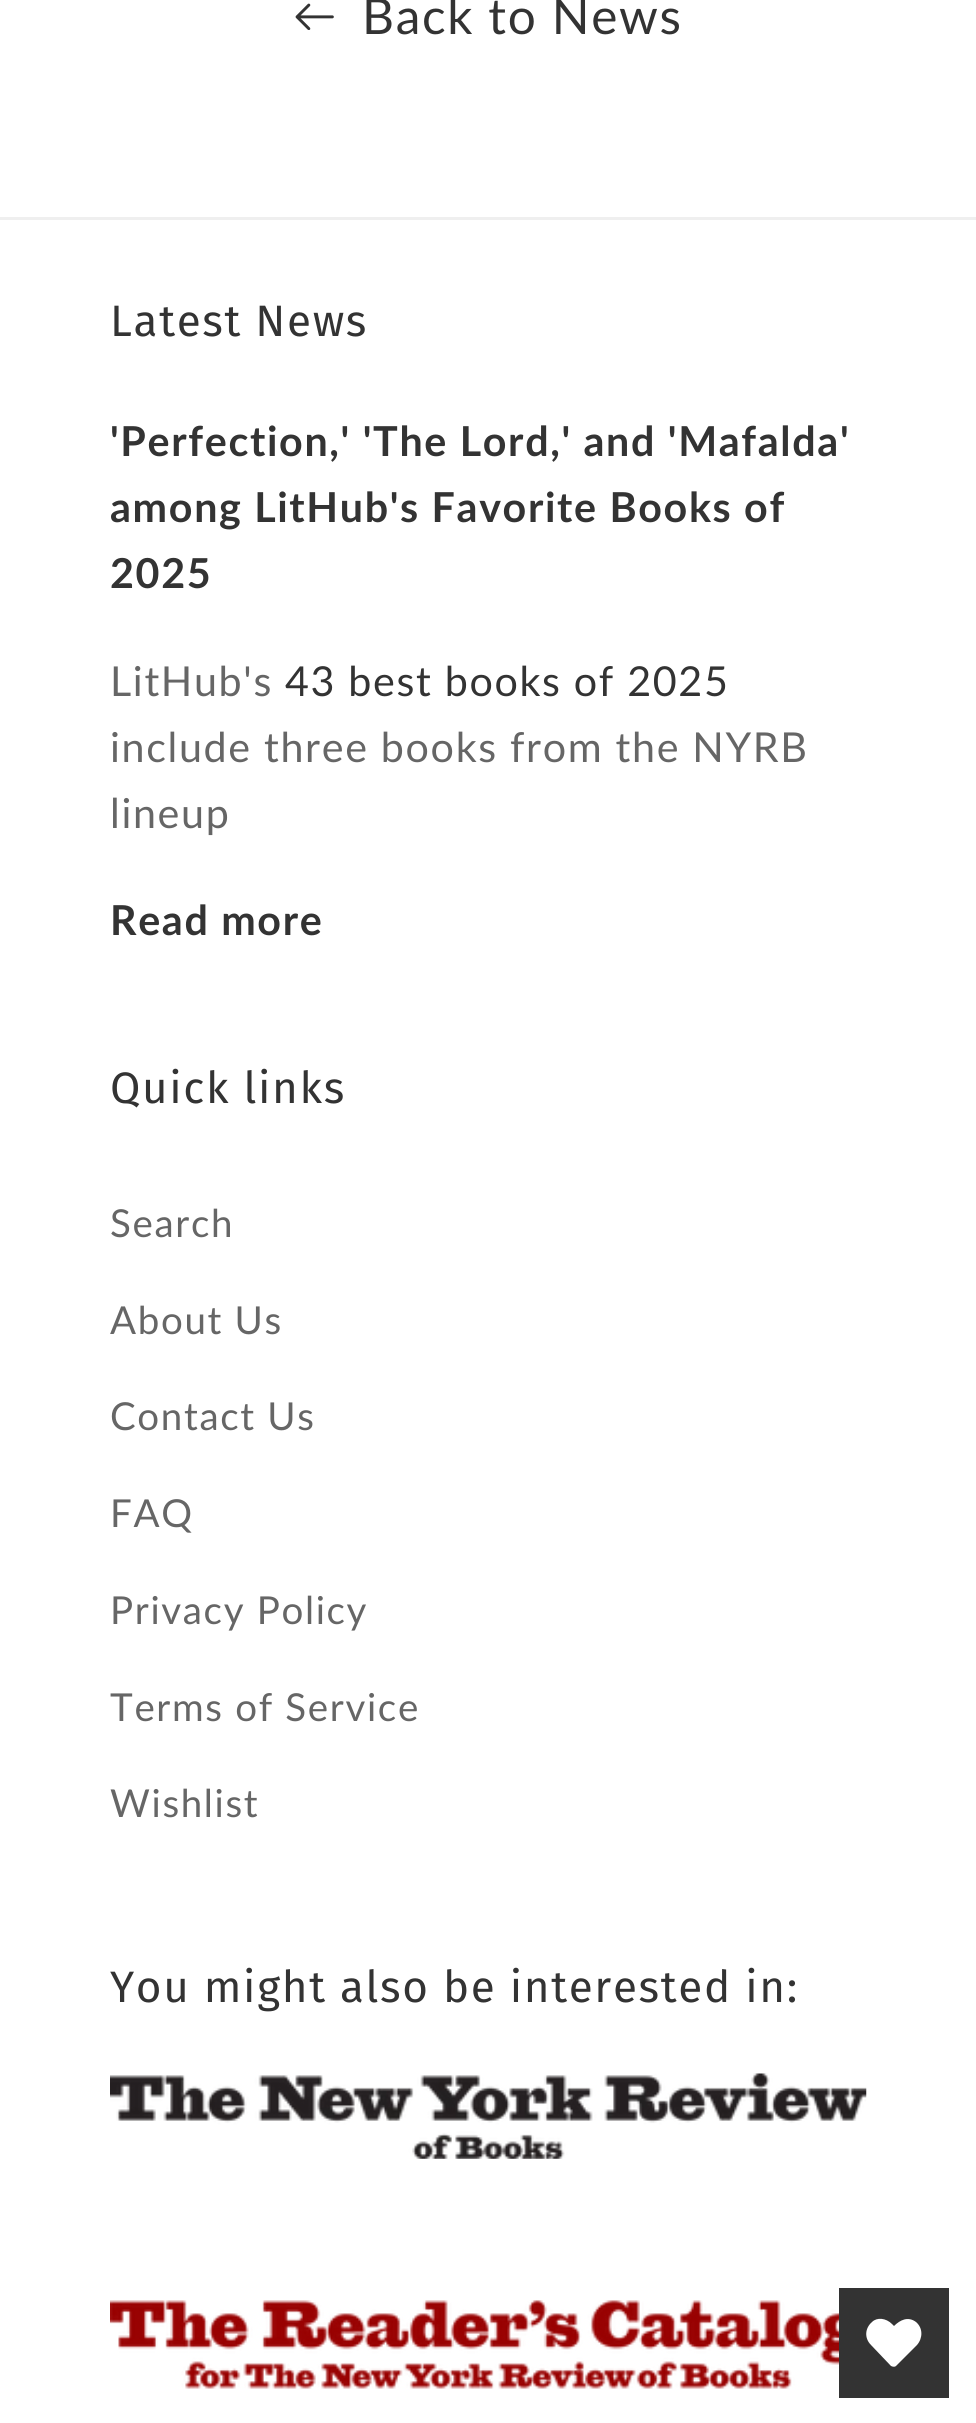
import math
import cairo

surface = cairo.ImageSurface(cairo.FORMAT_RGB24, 976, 2423)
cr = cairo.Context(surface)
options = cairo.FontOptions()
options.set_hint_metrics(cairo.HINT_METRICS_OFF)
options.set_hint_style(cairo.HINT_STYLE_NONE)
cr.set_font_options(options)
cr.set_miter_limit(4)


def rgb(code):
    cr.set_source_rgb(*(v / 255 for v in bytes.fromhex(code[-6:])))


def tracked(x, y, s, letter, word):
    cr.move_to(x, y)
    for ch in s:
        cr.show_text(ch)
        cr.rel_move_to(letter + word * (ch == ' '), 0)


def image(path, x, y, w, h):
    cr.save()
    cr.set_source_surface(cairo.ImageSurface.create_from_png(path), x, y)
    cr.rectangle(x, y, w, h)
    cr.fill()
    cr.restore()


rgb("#ffffff")
cr.paint()
image("img/1.png", 295, 3, 39, 27)
rgb("#efefef")
cr.rectangle(0, 217, 976, 3)
cr.fill()
image("img/2.png", 110, 2073, 757, 86)
image("img/3.png", 110, 2300, 729, 89)
rgb("#333333")
cr.rectangle(839, 2288, 110, 110)
cr.fill()
rgb("#ffffff")
cr.new_path()
cr.move_to(916, 2322)
cr.curve_to(908, 2316, 900, 2320, 894, 2326)
cr.line_to(892, 2324)
cr.curve_to(886, 2318, 877, 2317, 872, 2322)
cr.curve_to(865, 2328, 864, 2338, 871, 2345)
cr.line_to(891, 2366)
cr.curve_to(893, 2367, 895, 2367, 896, 2366)
cr.line_to(917, 2345)
cr.curve_to(923, 2338, 923, 2328, 916, 2322)
cr.close_path()
cr.fill()
cr.select_font_face("Lato")
cr.set_font_size(49.5)
rgb("#333333")
tracked(362, 34, "Back to News", 1.65, 0)
cr.select_font_face("Fira Sans")
cr.set_font_size(44)
tracked(110, 336, "Latest News", 1.65, 0)
cr.select_font_face("Lato", cairo.FONT_SLANT_NORMAL, cairo.FONT_WEIGHT_BOLD)
cr.set_font_size(41.25)
for x, y, s in [
    (110, 456, "'Perfection,' 'The Lord,' and 'Mafalda'"),
    (110, 522, "among LitHub's Favorite Books of"),
    (110, 588, "2025"),
]:
    tracked(x, y, s, 1.65, 0)
cr.select_font_face("Lato")
rgb("#666666")
tracked(110, 696, "LitHub's", 1.65, 0)
rgb("#333333")
tracked(285, 696, "43 best books of 2025", 1.65, 0)
rgb("#666666")
tracked(110, 762, "include three books from the NYRB", 1.65, 0)
tracked(110, 828, "lineup", 1.65, 0)
cr.select_font_face("Lato", cairo.FONT_SLANT_NORMAL, cairo.FONT_WEIGHT_BOLD)
rgb("#333333")
tracked(110, 935, "Read more", 1.65, 0)
cr.select_font_face("Fira Sans")
cr.set_font_size(44)
tracked(110, 1103, "Quick links", 1.65, 0)
cr.select_font_face("Lato")
cr.set_font_size(38.5)
rgb("#666666")
for x, y, s in [
    (110, 1237, "Search"),
    (110, 1334, "About Us"),
    (110, 1430, "Contact Us"),
    (110, 1527, "FAQ"),
    (110, 1624, "Privacy Policy"),
    (110, 1721, "Terms of Service"),
    (110, 1817, "Wishlist"),
]:
    tracked(x, y, s, 1.65, 0)
cr.select_font_face("Fira Sans")
cr.set_font_size(44)
rgb("#333333")
tracked(110, 2002, "You might also be interested in:", 1.65, 0)
surface.write_to_png("page.png")
